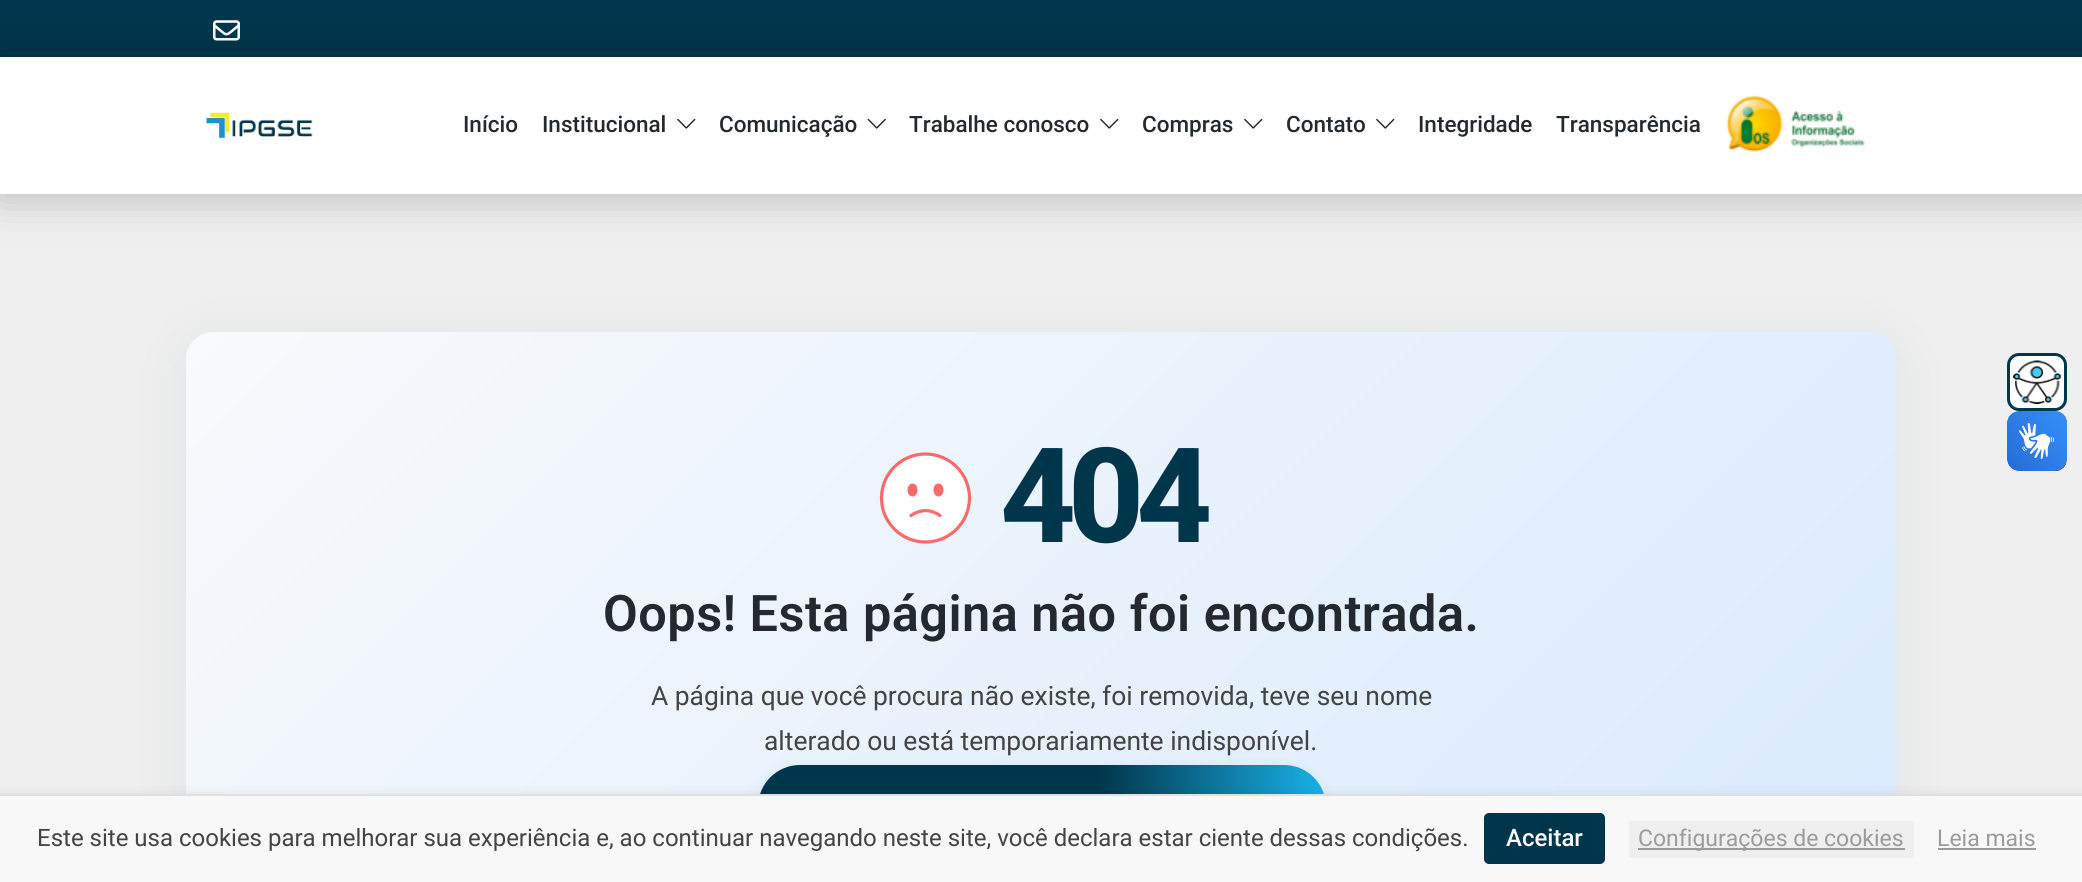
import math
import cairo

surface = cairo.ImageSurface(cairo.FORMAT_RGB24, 2082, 882)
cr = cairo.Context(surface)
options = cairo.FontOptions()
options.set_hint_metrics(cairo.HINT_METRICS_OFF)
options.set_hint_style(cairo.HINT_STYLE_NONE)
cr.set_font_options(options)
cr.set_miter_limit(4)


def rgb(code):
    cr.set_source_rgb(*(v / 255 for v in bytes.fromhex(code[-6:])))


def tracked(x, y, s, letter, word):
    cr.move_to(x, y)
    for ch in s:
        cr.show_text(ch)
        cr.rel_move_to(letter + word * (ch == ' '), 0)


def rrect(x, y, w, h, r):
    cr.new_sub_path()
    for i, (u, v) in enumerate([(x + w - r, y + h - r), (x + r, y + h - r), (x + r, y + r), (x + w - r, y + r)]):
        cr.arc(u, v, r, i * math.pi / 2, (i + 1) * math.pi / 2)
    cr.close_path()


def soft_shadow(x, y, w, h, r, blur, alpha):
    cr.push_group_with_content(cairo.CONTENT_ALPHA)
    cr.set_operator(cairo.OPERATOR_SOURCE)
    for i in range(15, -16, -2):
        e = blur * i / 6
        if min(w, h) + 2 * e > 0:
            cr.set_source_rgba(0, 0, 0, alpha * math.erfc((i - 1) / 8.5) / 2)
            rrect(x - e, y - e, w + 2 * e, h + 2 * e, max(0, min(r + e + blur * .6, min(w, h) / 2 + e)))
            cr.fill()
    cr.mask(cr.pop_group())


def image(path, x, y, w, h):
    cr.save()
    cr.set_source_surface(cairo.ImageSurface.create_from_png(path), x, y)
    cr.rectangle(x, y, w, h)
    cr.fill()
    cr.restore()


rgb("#efefef")
cr.paint()
rgb("#00374c")
cr.rectangle(0, 0, 2082, 57)
cr.fill()
image("img/1.png", 213, 20, 27, 21)
rgb("#000000")
soft_shadow(-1, 56, 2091, 145, 0, 19, 0.2)
rgb("#ffffff")
cr.rectangle(0, 57, 2082, 137)
cr.fill()
image("img/2.png", 205, 112, 108, 27)
image("img/3.png", 677, 118, 19, 11)
image("img/4.png", 867, 118, 19, 11)
image("img/3.png", 1100, 118, 19, 11)
image("img/3.png", 1244, 118, 19, 11)
image("img/3.png", 1376, 118, 19, 11)
image("img/5.png", 1726, 95, 139, 57)
rrect(2008.5, 354.5, 57, 55, 10.5)
cr.fill_preserve()
rgb("#00374c")
cr.set_line_width(3)
cr.stroke()
image("img/6.png", 2013, 360, 48, 45)
rgb("#0c2642")
soft_shadow(186, 341, 1710, 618, 27, 30, 0.07)
gradient = cairo.LinearGradient(459, 59, 1623, 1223)
gradient.add_color_stop_rgba(0, 0.973, 0.98, 0.988, 1)
gradient.add_color_stop_rgba(1, 0.851, 0.918, 0.992, 1)
cr.set_source(gradient)
rrect(186, 332, 1710, 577, 27)
cr.fill()
rgb("#ffffff")
cr.arc(925.5, 498, 44, 0, 2 * math.pi)
cr.fill_preserve()
rgb("#f96a6a")
cr.set_line_width(3.2)
cr.stroke()
cr.new_path()
cr.move_to(912.5, 483.5)
cr.curve_to(915.5, 483.5, 917.5, 486.5, 917.5, 490)
cr.curve_to(917.5, 493.5, 915.5, 496.5, 912.5, 496.5)
cr.curve_to(909.5, 496.5, 907.5, 493.5, 907.5, 490)
cr.curve_to(907.5, 486.5, 909.5, 483.5, 912.5, 483.5)
cr.close_path()
cr.fill()
cr.new_path()
cr.move_to(938.5, 483.5)
cr.curve_to(941.5, 483.5, 943.5, 486.5, 943.5, 490)
cr.curve_to(943.5, 493.5, 941.5, 496.5, 938.5, 496.5)
cr.curve_to(935.5, 496.5, 933.5, 493.5, 933.5, 490)
cr.curve_to(933.5, 486.5, 935.5, 483.5, 938.5, 483.5)
cr.close_path()
cr.fill()
cr.new_path()
cr.move_to(911, 515.5)
cr.curve_to(920.5, 509, 930.5, 509, 940, 515.5)
cr.set_line_cap(cairo.LINE_CAP_ROUND)
cr.stroke()
rgb("#1d8db9")
soft_shadow(758, 768, 568, 84, 42, 7.5, 0.11)
gradient = cairo.LinearGradient(758, 807, 1326, 807)
gradient.add_color_stop_rgba(0.6, 0, 0.212, 0.294, 1)
gradient.add_color_stop_rgba(1, 0.098, 0.698, 0.914, 1)
cr.set_source(gradient)
rrect(758, 765, 568, 84, 42)
cr.fill()
image("img/7.png", 2007, 411, 60, 60)
image("img/8.png", 2007, 411, 60, 60)
rgb("#000000")
soft_shadow(0, 792, 2082, 89, 0, 4.5, 0.06)
rgb("#f8f8f8")
cr.rectangle(0, 796, 2082, 86)
cr.fill()
rgb("#e0e0e0")
cr.rectangle(0, 794, 2082, 2)
cr.fill()
rgb("#00364b")
rrect(1484, 813, 121, 51, 5)
cr.fill()
for x, y, w, h, color in [
    (1629, 821, 285, 37, "#efefef"),
    (1638, 848, 267, 2, "#9b9b9b"),
    (1938, 848, 98, 2, "#9b9b9b"),
]:
    rgb(color)
    cr.rectangle(x, y, w, h)
    cr.fill()
cr.select_font_face("Roboto Medium")
cr.set_font_size(22.5)
rgb("#23292e")
for x, y, s in [
    (463, 132, "Início"),
    (542, 132, "Institucional"),
    (719, 132, "Comunicação"),
    (909, 132, "Trabalhe conosco"),
    (1142, 132, "Compras"),
    (1286, 132, "Contato"),
    (1418, 132, "Integridade"),
    (1556, 132, "Transparência"),
]:
    cr.move_to(x, y)
    cr.show_text(s)
cr.select_font_face("Roboto ExtraBold")
cr.set_font_size(132)
rgb("#00364b")
tracked(1000, 542, "404", -8, 0)
cr.select_font_face("Roboto SemiBold")
cr.set_font_size(50.4)
rgb("#23292e")
tracked(603, 631, "Oops! Esta página não foi encontrada.", 0.5, 0)
cr.select_font_face("Roboto")
cr.set_font_size(26.4)
rgb("#444444")
cr.move_to(651, 705)
cr.show_text("A página que você procura não existe, foi removida, teve seu nome")
cr.move_to(764, 750)
cr.show_text("alterado ou está temporariamente indisponível.")
cr.set_font_size(24)
cr.move_to(37, 846)
cr.show_text("Este site usa cookies para melhorar sua experiência e, ao continuar navegando neste site, você declara estar ciente dessas condições.")
cr.select_font_face("Roboto Medium")
rgb("#ffffff")
cr.move_to(1506, 846)
cr.show_text("Aceitar")
cr.select_font_face("Roboto")
cr.set_font_size(23)
rgb("#9b9b9b")
cr.move_to(1638, 846)
cr.show_text("Configurações de cookies")
cr.move_to(1937, 846)
cr.show_text("Leia mais")
surface.write_to_png("page.png")
